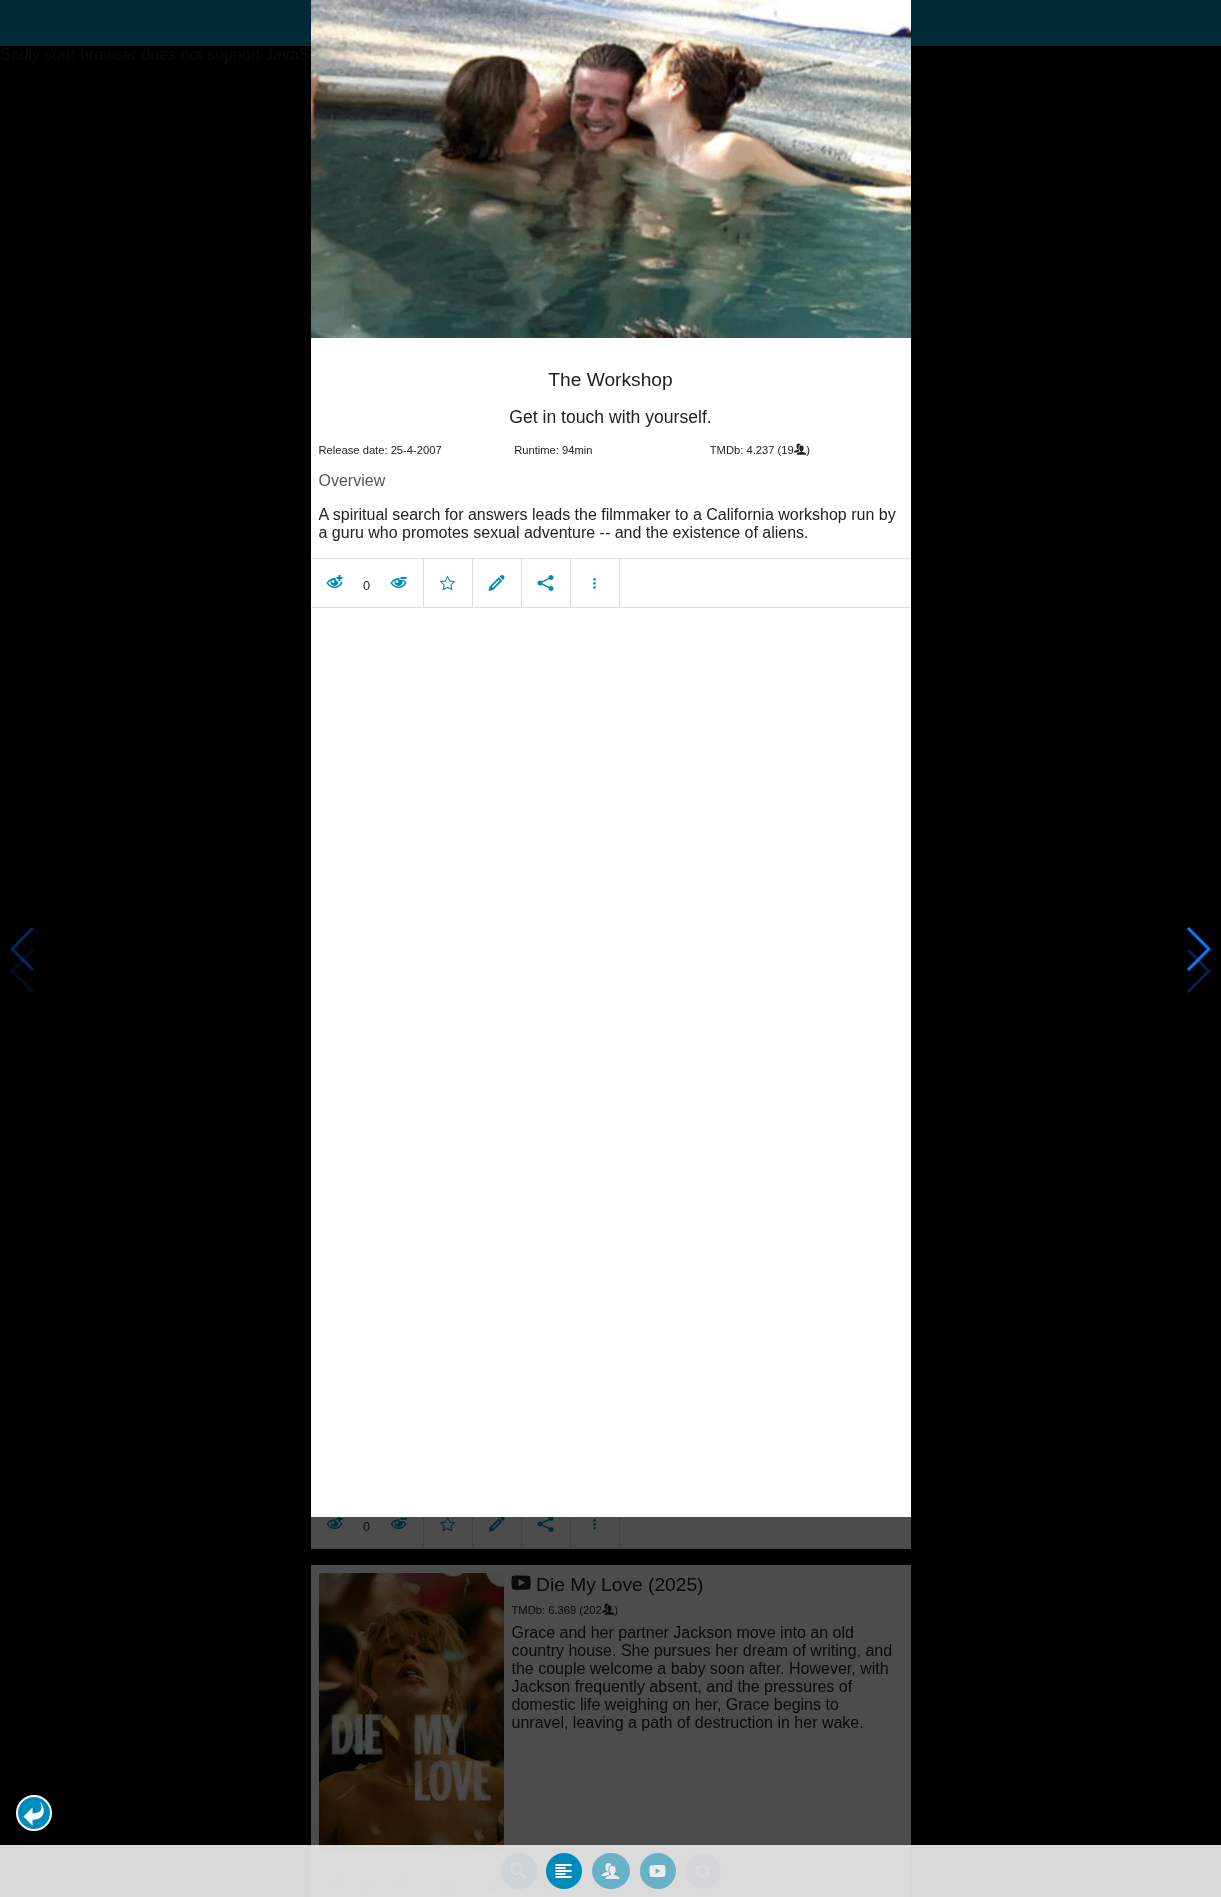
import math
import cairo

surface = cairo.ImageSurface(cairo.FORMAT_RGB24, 1221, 1897)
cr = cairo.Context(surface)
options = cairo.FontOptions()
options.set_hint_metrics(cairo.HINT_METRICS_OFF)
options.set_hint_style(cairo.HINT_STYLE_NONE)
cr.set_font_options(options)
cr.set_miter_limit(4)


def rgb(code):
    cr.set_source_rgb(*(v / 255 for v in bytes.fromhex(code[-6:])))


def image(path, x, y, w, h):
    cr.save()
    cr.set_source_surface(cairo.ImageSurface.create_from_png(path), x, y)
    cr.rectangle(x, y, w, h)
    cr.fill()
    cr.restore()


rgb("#ffffff")
cr.paint()
image("img/1.png", 0, 0, 1221, 1897)
surface.write_to_png("page.png")
